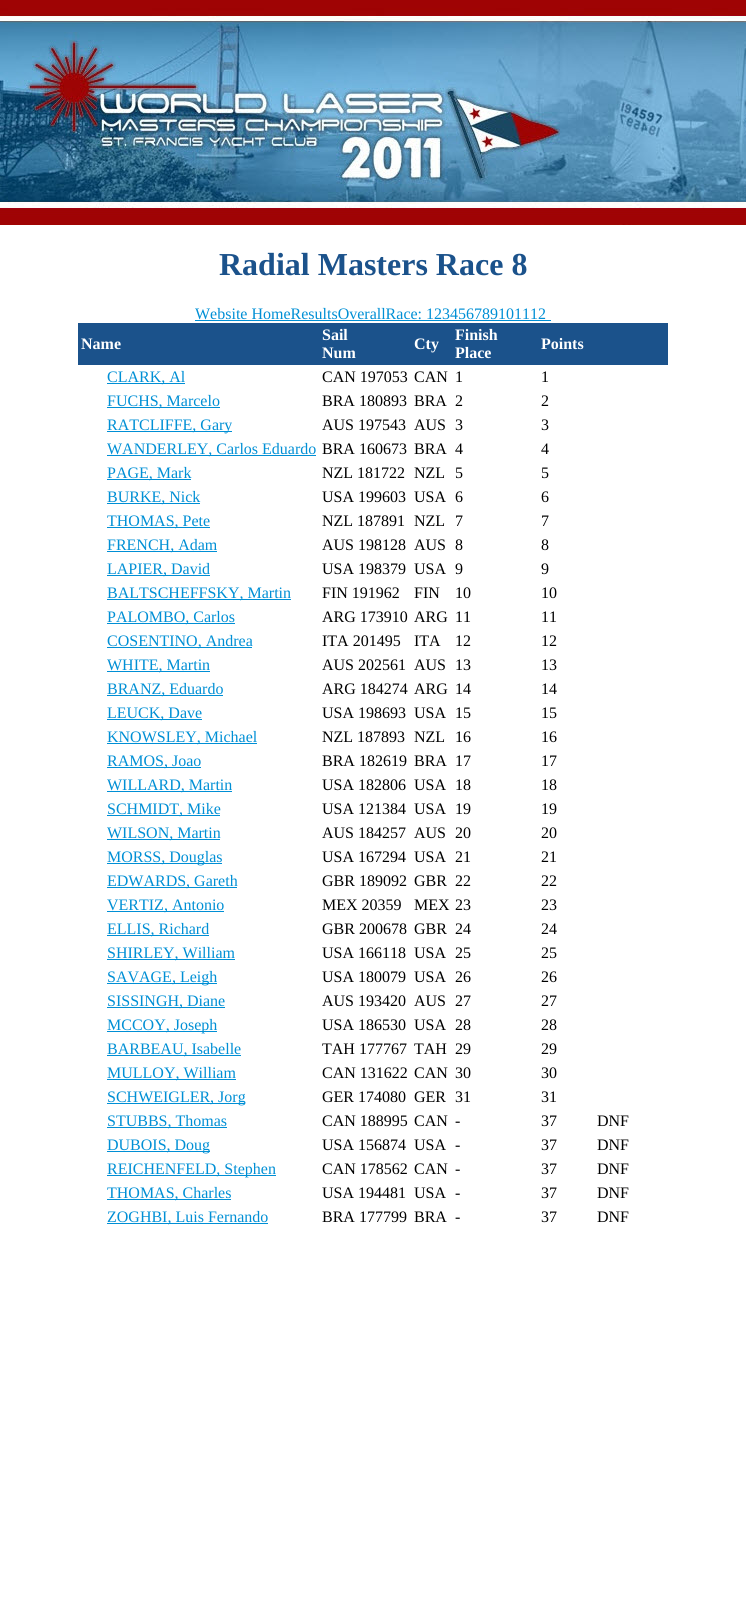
import math
import cairo

surface = cairo.ImageSurface(cairo.FORMAT_RGB24, 746, 1619)
cr = cairo.Context(surface)
options = cairo.FontOptions()
options.set_hint_metrics(cairo.HINT_METRICS_OFF)
options.set_hint_style(cairo.HINT_STYLE_NONE)
cr.set_font_options(options)
cr.set_miter_limit(4)


def rgb(code):
    cr.set_source_rgb(*(v / 255 for v in bytes.fromhex(code[-6:])))


def image(path, x, y, w, h):
    cr.save()
    cr.set_source_surface(cairo.ImageSurface.create_from_png(path), x, y)
    cr.rectangle(x, y, w, h)
    cr.fill()
    cr.restore()


rgb("#ffffff")
cr.paint()
image("img/1.png", 0, 0, 746, 225)
for x, y, w, h, color in [
    (195, 320, 356, 1, "#008fd5"),
    (78, 323, 590, 42, "#1b528b"),
    (107, 383, 78, 1, "#008fd5"),
    (107, 407, 113, 1, "#008fd5"),
    (107, 431, 125, 1, "#008fd5"),
    (107, 455, 209, 1, "#008fd5"),
    (107, 479, 84, 1, "#008fd5"),
    (107, 503, 93, 1, "#008fd5"),
    (107, 527, 103, 1, "#008fd5"),
    (107, 551, 110, 1, "#008fd5"),
    (107, 575, 103, 1, "#008fd5"),
    (107, 599, 184, 1, "#008fd5"),
    (107, 623, 128, 1, "#008fd5"),
    (107, 647, 145, 1, "#008fd5"),
    (107, 671, 103, 1, "#008fd5"),
    (107, 695, 116, 1, "#008fd5"),
    (107, 719, 95, 1, "#008fd5"),
    (107, 743, 150, 1, "#008fd5"),
    (107, 767, 94, 1, "#008fd5"),
    (107, 791, 125, 1, "#008fd5"),
    (107, 815, 113, 1, "#008fd5"),
    (107, 839, 113, 1, "#008fd5"),
    (107, 863, 115, 1, "#008fd5"),
    (107, 887, 130, 1, "#008fd5"),
    (107, 911, 117, 1, "#008fd5"),
    (107, 935, 102, 1, "#008fd5"),
    (107, 959, 128, 1, "#008fd5"),
    (107, 983, 110, 1, "#008fd5"),
    (107, 1007, 118, 1, "#008fd5"),
    (107, 1031, 110, 1, "#008fd5"),
    (107, 1055, 134, 1, "#008fd5"),
    (107, 1079, 129, 1, "#008fd5"),
    (107, 1103, 138, 1, "#008fd5"),
    (107, 1127, 120, 1, "#008fd5"),
    (107, 1151, 103, 1, "#008fd5"),
    (107, 1175, 169, 1, "#008fd5"),
    (107, 1199, 124, 1, "#008fd5"),
    (107, 1223, 161, 1, "#008fd5"),
]:
    rgb(color)
    cr.rectangle(x, y, w, h)
    cr.fill()
cr.select_font_face("Liberation Serif", cairo.FONT_SLANT_NORMAL, cairo.FONT_WEIGHT_BOLD)
cr.set_font_size(32)
rgb("#1b528b")
cr.move_to(219, 275)
cr.show_text("Radial Masters Race 8")
cr.select_font_face("Liberation Serif")
cr.set_font_size(16)
rgb("#008fd5")
cr.move_to(195, 319)
cr.show_text("Website HomeResultsOverallRace: 123456789101112")
cr.select_font_face("Liberation Serif", cairo.FONT_SLANT_NORMAL, cairo.FONT_WEIGHT_BOLD)
rgb("#ffffff")
for x, y, s in [
    (81, 349, "Name"),
    (322, 340, "Sail"),
    (322, 358, "Num"),
    (414, 349, "Cty"),
    (455, 340, "Finish"),
    (455, 358, "Place"),
    (541, 349, "Points"),
]:
    cr.move_to(x, y)
    cr.show_text(s)
cr.select_font_face("Liberation Serif")
rgb("#008fd5")
cr.move_to(107, 382)
cr.show_text("CLARK, Al")
rgb("#000000")
for x, y, s in [
    (322, 382, "CAN 197053"),
    (414, 382, "CAN"),
    (455, 382, "1"),
    (541, 382, "1"),
]:
    cr.move_to(x, y)
    cr.show_text(s)
rgb("#008fd5")
cr.move_to(107, 406)
cr.show_text("FUCHS, Marcelo")
rgb("#000000")
for x, y, s in [
    (322, 406, "BRA 180893"),
    (414, 406, "BRA"),
    (455, 406, "2"),
    (541, 406, "2"),
]:
    cr.move_to(x, y)
    cr.show_text(s)
rgb("#008fd5")
cr.move_to(107, 430)
cr.show_text("RATCLIFFE, Gary")
rgb("#000000")
for x, y, s in [
    (322, 430, "AUS 197543"),
    (414, 430, "AUS"),
    (455, 430, "3"),
    (541, 430, "3"),
]:
    cr.move_to(x, y)
    cr.show_text(s)
rgb("#008fd5")
cr.move_to(107, 454)
cr.show_text("WANDERLEY, Carlos Eduardo")
rgb("#000000")
for x, y, s in [
    (322, 454, "BRA 160673"),
    (414, 454, "BRA"),
    (455, 454, "4"),
    (541, 454, "4"),
]:
    cr.move_to(x, y)
    cr.show_text(s)
rgb("#008fd5")
cr.move_to(107, 478)
cr.show_text("PAGE, Mark")
rgb("#000000")
for x, y, s in [
    (322, 478, "NZL 181722"),
    (414, 478, "NZL"),
    (455, 478, "5"),
    (541, 478, "5"),
]:
    cr.move_to(x, y)
    cr.show_text(s)
rgb("#008fd5")
cr.move_to(107, 502)
cr.show_text("BURKE, Nick")
rgb("#000000")
for x, y, s in [
    (322, 502, "USA 199603"),
    (414, 502, "USA"),
    (455, 502, "6"),
    (541, 502, "6"),
]:
    cr.move_to(x, y)
    cr.show_text(s)
rgb("#008fd5")
cr.move_to(107, 526)
cr.show_text("THOMAS, Pete")
rgb("#000000")
for x, y, s in [
    (322, 526, "NZL 187891"),
    (414, 526, "NZL"),
    (455, 526, "7"),
    (541, 526, "7"),
]:
    cr.move_to(x, y)
    cr.show_text(s)
rgb("#008fd5")
cr.move_to(107, 550)
cr.show_text("FRENCH, Adam")
rgb("#000000")
for x, y, s in [
    (322, 550, "AUS 198128"),
    (414, 550, "AUS"),
    (455, 550, "8"),
    (541, 550, "8"),
]:
    cr.move_to(x, y)
    cr.show_text(s)
rgb("#008fd5")
cr.move_to(107, 574)
cr.show_text("LAPIER, David")
rgb("#000000")
for x, y, s in [
    (322, 574, "USA 198379"),
    (414, 574, "USA"),
    (455, 574, "9"),
    (541, 574, "9"),
]:
    cr.move_to(x, y)
    cr.show_text(s)
rgb("#008fd5")
cr.move_to(107, 598)
cr.show_text("BALTSCHEFFSKY, Martin")
rgb("#000000")
for x, y, s in [
    (322, 598, "FIN 191962"),
    (414, 598, "FIN"),
    (455, 598, "10"),
    (541, 598, "10"),
]:
    cr.move_to(x, y)
    cr.show_text(s)
rgb("#008fd5")
cr.move_to(107, 622)
cr.show_text("PALOMBO, Carlos")
rgb("#000000")
for x, y, s in [
    (322, 622, "ARG 173910"),
    (414, 622, "ARG"),
    (455, 622, "11"),
    (541, 622, "11"),
]:
    cr.move_to(x, y)
    cr.show_text(s)
rgb("#008fd5")
cr.move_to(107, 646)
cr.show_text("COSENTINO, Andrea")
rgb("#000000")
for x, y, s in [
    (322, 646, "ITA 201495"),
    (414, 646, "ITA"),
    (455, 646, "12"),
    (541, 646, "12"),
]:
    cr.move_to(x, y)
    cr.show_text(s)
rgb("#008fd5")
cr.move_to(107, 670)
cr.show_text("WHITE, Martin")
rgb("#000000")
for x, y, s in [
    (322, 670, "AUS 202561"),
    (414, 670, "AUS"),
    (455, 670, "13"),
    (541, 670, "13"),
]:
    cr.move_to(x, y)
    cr.show_text(s)
rgb("#008fd5")
cr.move_to(107, 694)
cr.show_text("BRANZ, Eduardo")
rgb("#000000")
for x, y, s in [
    (322, 694, "ARG 184274"),
    (414, 694, "ARG"),
    (455, 694, "14"),
    (541, 694, "14"),
]:
    cr.move_to(x, y)
    cr.show_text(s)
rgb("#008fd5")
cr.move_to(107, 718)
cr.show_text("LEUCK, Dave")
rgb("#000000")
for x, y, s in [
    (322, 718, "USA 198693"),
    (414, 718, "USA"),
    (455, 718, "15"),
    (541, 718, "15"),
]:
    cr.move_to(x, y)
    cr.show_text(s)
rgb("#008fd5")
cr.move_to(107, 742)
cr.show_text("KNOWSLEY, Michael")
rgb("#000000")
for x, y, s in [
    (322, 742, "NZL 187893"),
    (414, 742, "NZL"),
    (455, 742, "16"),
    (541, 742, "16"),
]:
    cr.move_to(x, y)
    cr.show_text(s)
rgb("#008fd5")
cr.move_to(107, 766)
cr.show_text("RAMOS, Joao")
rgb("#000000")
for x, y, s in [
    (322, 766, "BRA 182619"),
    (414, 766, "BRA"),
    (455, 766, "17"),
    (541, 766, "17"),
]:
    cr.move_to(x, y)
    cr.show_text(s)
rgb("#008fd5")
cr.move_to(107, 790)
cr.show_text("WILLARD, Martin")
rgb("#000000")
for x, y, s in [
    (322, 790, "USA 182806"),
    (414, 790, "USA"),
    (455, 790, "18"),
    (541, 790, "18"),
]:
    cr.move_to(x, y)
    cr.show_text(s)
rgb("#008fd5")
cr.move_to(107, 814)
cr.show_text("SCHMIDT, Mike")
rgb("#000000")
for x, y, s in [
    (322, 814, "USA 121384"),
    (414, 814, "USA"),
    (455, 814, "19"),
    (541, 814, "19"),
]:
    cr.move_to(x, y)
    cr.show_text(s)
rgb("#008fd5")
cr.move_to(107, 838)
cr.show_text("WILSON, Martin")
rgb("#000000")
for x, y, s in [
    (322, 838, "AUS 184257"),
    (414, 838, "AUS"),
    (455, 838, "20"),
    (541, 838, "20"),
]:
    cr.move_to(x, y)
    cr.show_text(s)
rgb("#008fd5")
cr.move_to(107, 862)
cr.show_text("MORSS, Douglas")
rgb("#000000")
for x, y, s in [
    (322, 862, "USA 167294"),
    (414, 862, "USA"),
    (455, 862, "21"),
    (541, 862, "21"),
]:
    cr.move_to(x, y)
    cr.show_text(s)
rgb("#008fd5")
cr.move_to(107, 886)
cr.show_text("EDWARDS, Gareth")
rgb("#000000")
for x, y, s in [
    (322, 886, "GBR 189092"),
    (414, 886, "GBR"),
    (455, 886, "22"),
    (541, 886, "22"),
]:
    cr.move_to(x, y)
    cr.show_text(s)
rgb("#008fd5")
cr.move_to(107, 910)
cr.show_text("VERTIZ, Antonio")
rgb("#000000")
for x, y, s in [
    (322, 910, "MEX 20359"),
    (414, 910, "MEX"),
    (455, 910, "23"),
    (541, 910, "23"),
]:
    cr.move_to(x, y)
    cr.show_text(s)
rgb("#008fd5")
cr.move_to(107, 934)
cr.show_text("ELLIS, Richard")
rgb("#000000")
for x, y, s in [
    (322, 934, "GBR 200678"),
    (414, 934, "GBR"),
    (455, 934, "24"),
    (541, 934, "24"),
]:
    cr.move_to(x, y)
    cr.show_text(s)
rgb("#008fd5")
cr.move_to(107, 958)
cr.show_text("SHIRLEY, William")
rgb("#000000")
for x, y, s in [
    (322, 958, "USA 166118"),
    (414, 958, "USA"),
    (455, 958, "25"),
    (541, 958, "25"),
]:
    cr.move_to(x, y)
    cr.show_text(s)
rgb("#008fd5")
cr.move_to(107, 982)
cr.show_text("SAVAGE, Leigh")
rgb("#000000")
for x, y, s in [
    (322, 982, "USA 180079"),
    (414, 982, "USA"),
    (455, 982, "26"),
    (541, 982, "26"),
]:
    cr.move_to(x, y)
    cr.show_text(s)
rgb("#008fd5")
cr.move_to(107, 1006)
cr.show_text("SISSINGH, Diane")
rgb("#000000")
for x, y, s in [
    (322, 1006, "AUS 193420"),
    (414, 1006, "AUS"),
    (455, 1006, "27"),
    (541, 1006, "27"),
]:
    cr.move_to(x, y)
    cr.show_text(s)
rgb("#008fd5")
cr.move_to(107, 1030)
cr.show_text("MCCOY, Joseph")
rgb("#000000")
for x, y, s in [
    (322, 1030, "USA 186530"),
    (414, 1030, "USA"),
    (455, 1030, "28"),
    (541, 1030, "28"),
]:
    cr.move_to(x, y)
    cr.show_text(s)
rgb("#008fd5")
cr.move_to(107, 1054)
cr.show_text("BARBEAU, Isabelle")
rgb("#000000")
for x, y, s in [
    (322, 1054, "TAH 177767"),
    (414, 1054, "TAH"),
    (455, 1054, "29"),
    (541, 1054, "29"),
]:
    cr.move_to(x, y)
    cr.show_text(s)
rgb("#008fd5")
cr.move_to(107, 1078)
cr.show_text("MULLOY, William")
rgb("#000000")
for x, y, s in [
    (322, 1078, "CAN 131622"),
    (414, 1078, "CAN"),
    (455, 1078, "30"),
    (541, 1078, "30"),
]:
    cr.move_to(x, y)
    cr.show_text(s)
rgb("#008fd5")
cr.move_to(107, 1102)
cr.show_text("SCHWEIGLER, Jorg")
rgb("#000000")
for x, y, s in [
    (322, 1102, "GER 174080"),
    (414, 1102, "GER"),
    (455, 1102, "31"),
    (541, 1102, "31"),
]:
    cr.move_to(x, y)
    cr.show_text(s)
rgb("#008fd5")
cr.move_to(107, 1126)
cr.show_text("STUBBS, Thomas")
rgb("#000000")
for x, y, s in [
    (322, 1126, "CAN 188995"),
    (414, 1126, "CAN"),
    (455, 1126, "-"),
    (541, 1126, "37"),
    (597, 1126, "DNF"),
]:
    cr.move_to(x, y)
    cr.show_text(s)
rgb("#008fd5")
cr.move_to(107, 1150)
cr.show_text("DUBOIS, Doug")
rgb("#000000")
for x, y, s in [
    (322, 1150, "USA 156874"),
    (414, 1150, "USA"),
    (455, 1150, "-"),
    (541, 1150, "37"),
    (597, 1150, "DNF"),
]:
    cr.move_to(x, y)
    cr.show_text(s)
rgb("#008fd5")
cr.move_to(107, 1174)
cr.show_text("REICHENFELD, Stephen")
rgb("#000000")
for x, y, s in [
    (322, 1174, "CAN 178562"),
    (414, 1174, "CAN"),
    (455, 1174, "-"),
    (541, 1174, "37"),
    (597, 1174, "DNF"),
]:
    cr.move_to(x, y)
    cr.show_text(s)
rgb("#008fd5")
cr.move_to(107, 1198)
cr.show_text("THOMAS, Charles")
rgb("#000000")
for x, y, s in [
    (322, 1198, "USA 194481"),
    (414, 1198, "USA"),
    (455, 1198, "-"),
    (541, 1198, "37"),
    (597, 1198, "DNF"),
]:
    cr.move_to(x, y)
    cr.show_text(s)
rgb("#008fd5")
cr.move_to(107, 1222)
cr.show_text("ZOGHBI, Luis Fernando")
rgb("#000000")
for x, y, s in [
    (322, 1222, "BRA 177799"),
    (414, 1222, "BRA"),
    (455, 1222, "-"),
    (541, 1222, "37"),
    (597, 1222, "DNF"),
]:
    cr.move_to(x, y)
    cr.show_text(s)
surface.write_to_png("page.png")
